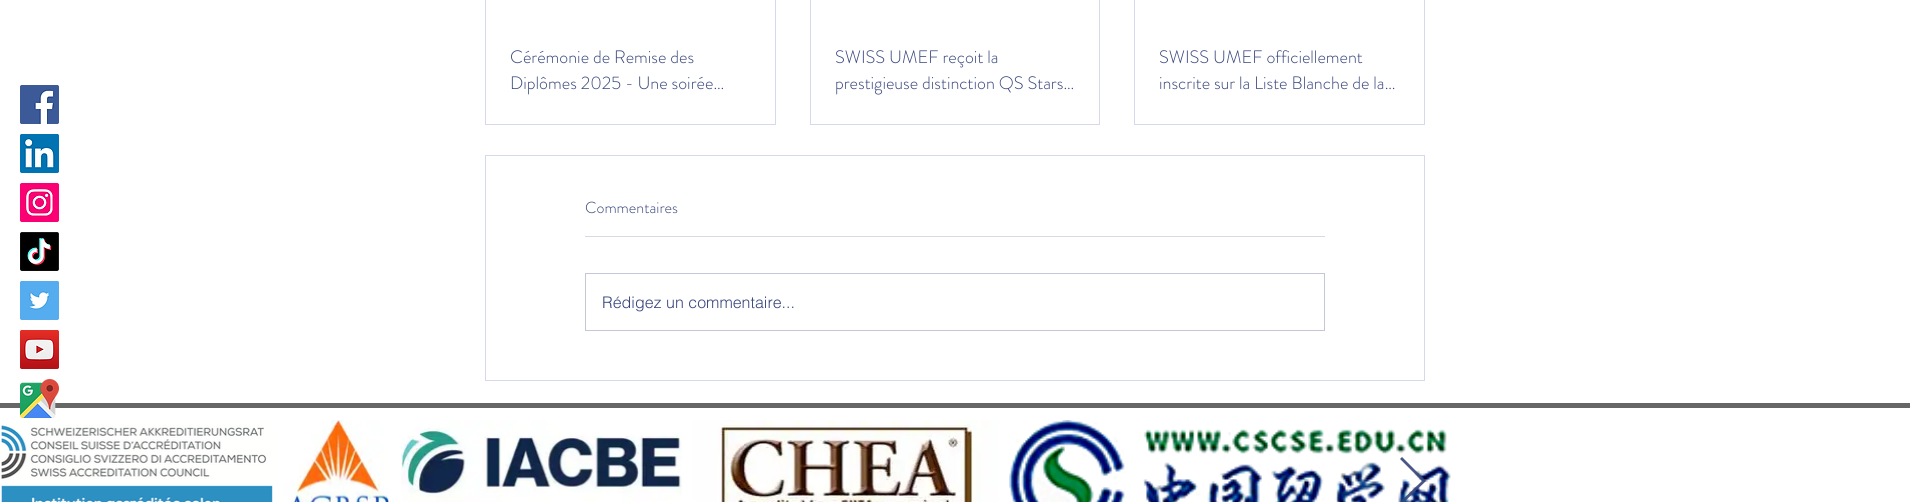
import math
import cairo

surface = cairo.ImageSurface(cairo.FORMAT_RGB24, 1910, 502)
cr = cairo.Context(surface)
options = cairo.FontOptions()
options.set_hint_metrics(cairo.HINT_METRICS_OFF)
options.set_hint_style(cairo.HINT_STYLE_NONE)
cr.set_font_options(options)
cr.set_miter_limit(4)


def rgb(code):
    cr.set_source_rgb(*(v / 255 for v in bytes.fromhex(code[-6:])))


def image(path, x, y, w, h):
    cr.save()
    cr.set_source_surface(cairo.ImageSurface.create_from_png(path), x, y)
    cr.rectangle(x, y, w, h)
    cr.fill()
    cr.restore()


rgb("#ffffff")
cr.paint()
image("img/1.png", 20, 85, 39, 39)
image("img/2.png", 20, 134, 39, 39)
image("img/3.png", 20, 183, 39, 39)
image("img/4.png", 20, 232, 39, 39)
image("img/5.png", 20, 281, 39, 39)
image("img/6.png", 20, 330, 39, 39)
rgb("#666666")
cr.rectangle(0, 403, 1910, 5)
cr.fill()
image("img/7.png", 20, 379, 39, 39)
cr.rectangle(485.5, -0.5, 290, 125)
rgb("#d4d9ec")
cr.set_line_width(1)
cr.stroke()
cr.rectangle(810.5, -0.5, 289, 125)
cr.stroke()
cr.rectangle(1134.5, -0.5, 290, 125)
cr.stroke()
cr.rectangle(485.5, 155.5, 939, 225)
cr.stroke()
rgb("#d7dae5")
cr.rectangle(585, 236, 740, 1)
cr.fill()
cr.rectangle(585.5, 273.5, 739, 57)
rgb("#c3c7d8")
cr.stroke()
image("img/8.png", 0, 420, 273, 82)
image("img/9.png", 283, 420, 108, 82)
image("img/10.png", 401, 420, 281, 82)
image("img/11.png", 692, 420, 307, 82)
image("img/12.png", 1009, 420, 442, 82)
cr.set_source_rgba(0.216, 0.271, 0.486, 0.9)
cr.new_path()
cr.move_to(1400, 459)
cr.line_to(1402, 457)
cr.line_to(1426, 481)
cr.line_to(1402, 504)
cr.line_to(1400, 502)
cr.line_to(1422, 481)
cr.close_path()
cr.fill()
cr.select_font_face("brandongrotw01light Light")
cr.set_font_size(18)
rgb("#37457c")
for x, y, s in [
    (510, 63, "Cérémonie de Remise des"),
    (510, 89, "Diplômes 2025 - Une soirée…"),
    (835, 63, "SWISS UMEF reçoit la"),
    (835, 89, "prestigieuse distinction QS Stars…"),
    (1159, 63, "SWISS UMEF officiellement"),
    (1159, 89, "inscrite sur la Liste Blanche de la…"),
]:
    cr.move_to(x, y)
    cr.show_text(s)
cr.set_font_size(16)
cr.move_to(585, 213)
cr.show_text("Commentaires")
cr.select_font_face("helvetica Light")
cr.move_to(602, 308)
cr.show_text("Rédigez un commentaire...")
surface.write_to_png("page.png")
